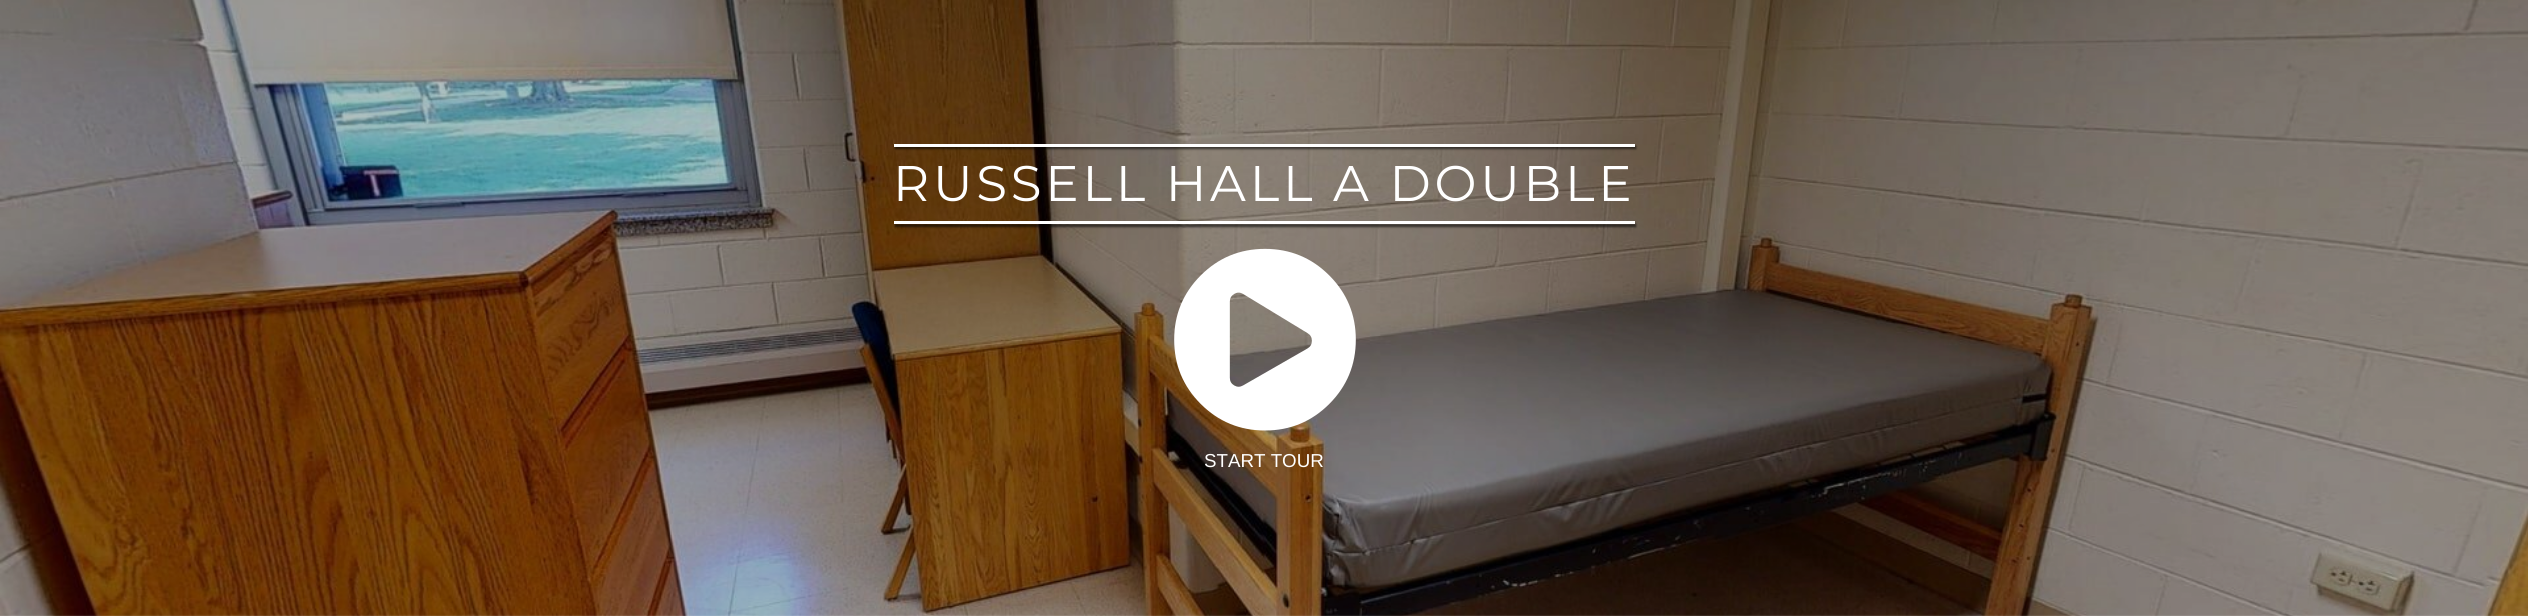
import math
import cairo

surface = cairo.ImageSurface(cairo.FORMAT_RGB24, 2528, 616)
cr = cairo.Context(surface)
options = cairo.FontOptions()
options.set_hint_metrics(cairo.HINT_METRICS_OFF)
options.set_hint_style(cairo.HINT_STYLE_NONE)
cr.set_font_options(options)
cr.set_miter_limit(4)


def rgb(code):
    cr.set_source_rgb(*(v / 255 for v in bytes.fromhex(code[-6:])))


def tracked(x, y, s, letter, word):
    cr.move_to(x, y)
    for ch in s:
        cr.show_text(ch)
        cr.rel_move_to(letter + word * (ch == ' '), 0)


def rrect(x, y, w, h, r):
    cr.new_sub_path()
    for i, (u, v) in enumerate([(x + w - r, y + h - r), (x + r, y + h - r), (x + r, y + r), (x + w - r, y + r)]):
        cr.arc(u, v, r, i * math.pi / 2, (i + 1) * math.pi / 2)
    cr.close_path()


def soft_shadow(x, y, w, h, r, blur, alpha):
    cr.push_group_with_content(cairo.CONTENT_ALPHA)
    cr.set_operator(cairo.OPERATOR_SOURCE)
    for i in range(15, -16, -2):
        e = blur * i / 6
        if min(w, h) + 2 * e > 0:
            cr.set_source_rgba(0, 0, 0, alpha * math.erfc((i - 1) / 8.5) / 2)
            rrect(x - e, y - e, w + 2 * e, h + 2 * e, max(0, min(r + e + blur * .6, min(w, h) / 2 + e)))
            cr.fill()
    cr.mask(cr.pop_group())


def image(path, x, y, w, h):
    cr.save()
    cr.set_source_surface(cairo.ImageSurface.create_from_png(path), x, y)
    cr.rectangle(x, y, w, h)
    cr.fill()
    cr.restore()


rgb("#ffffff")
cr.paint()
image("img/1.png", 0, 0, 2528, 616)
rgb("#000000")
soft_shadow(895, 146, 741, 3, 0, 1, 0.6)
rgb("#ffffff")
cr.rectangle(894, 144, 741, 3)
cr.fill()
rgb("#000000")
soft_shadow(895, 224, 741, 3, 0, 1, 0.6)
rgb("#ffffff")
cr.rectangle(894, 221, 741, 3)
cr.fill()
image("img/2.png", 1174, 248, 182, 183)
cr.select_font_face("Montserrat")
cr.set_font_size(50)
tracked(893, 201, "RUSSELL HALL A DOUBLE", 3.75, 0)
cr.select_font_face("Liberation Sans")
cr.set_font_size(18.75)
cr.move_to(1204, 467)
cr.show_text("START TOUR")
surface.write_to_png("page.png")
